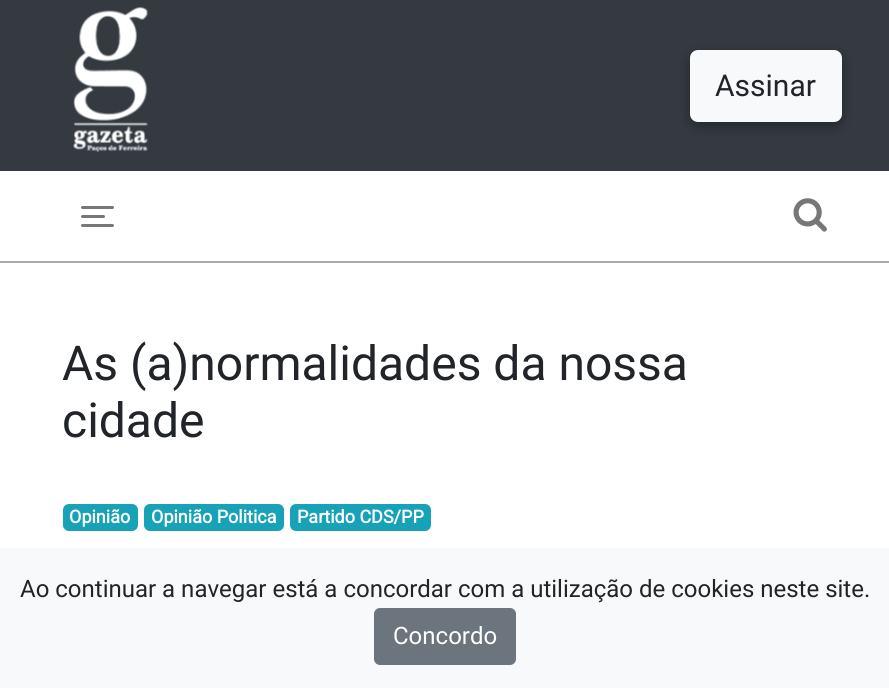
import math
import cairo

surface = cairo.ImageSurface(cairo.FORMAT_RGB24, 889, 688)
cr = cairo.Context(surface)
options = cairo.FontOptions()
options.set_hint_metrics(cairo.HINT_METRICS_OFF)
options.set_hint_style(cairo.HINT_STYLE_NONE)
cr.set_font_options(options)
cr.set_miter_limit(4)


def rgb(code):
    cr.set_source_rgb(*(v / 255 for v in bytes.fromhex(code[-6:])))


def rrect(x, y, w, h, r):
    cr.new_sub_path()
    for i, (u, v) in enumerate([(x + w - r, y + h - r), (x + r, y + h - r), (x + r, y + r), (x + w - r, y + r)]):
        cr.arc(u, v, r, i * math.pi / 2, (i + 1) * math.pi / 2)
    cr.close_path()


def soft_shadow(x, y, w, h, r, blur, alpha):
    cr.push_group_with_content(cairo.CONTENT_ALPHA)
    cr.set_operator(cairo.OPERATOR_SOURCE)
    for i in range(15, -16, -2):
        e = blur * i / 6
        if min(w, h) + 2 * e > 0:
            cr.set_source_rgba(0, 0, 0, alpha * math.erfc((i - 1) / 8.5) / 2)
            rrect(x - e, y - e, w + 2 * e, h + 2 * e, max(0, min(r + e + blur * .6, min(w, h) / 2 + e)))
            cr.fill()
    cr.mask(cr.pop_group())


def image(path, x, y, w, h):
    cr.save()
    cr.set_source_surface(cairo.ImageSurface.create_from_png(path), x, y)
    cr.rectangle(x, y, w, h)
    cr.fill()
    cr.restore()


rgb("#ffffff")
cr.paint()
rgb("#343a40")
cr.rectangle(0, 0, 889, 171)
cr.fill()
image("img/1.png", 73, 7, 75, 145)
rgb("#000000")
soft_shadow(690, 54, 152, 72, 8, 6, 0.33)
rgb("#f8f9fa")
rrect(691, 51, 150, 70, 7)
cr.fill_preserve()
cr.stroke()
rgb("#aaaaaa")
cr.rectangle(0, 261, 889, 2)
cr.fill()
rgb("#777777")
rrect(81, 206, 33, 3, 1.5)
cr.fill()
rrect(81, 215, 24, 3, 1.5)
cr.fill()
rrect(81, 224, 33, 3, 1.5)
cr.fill()
image("img/2.png", 793, 198, 34, 34)
rgb("#17a2b8")
rrect(63, 504, 75, 27, 6)
cr.fill()
rrect(144, 504, 140, 27, 6)
cr.fill()
rrect(290, 504, 141, 27, 6)
cr.fill()
rgb("#f8f9fa")
cr.rectangle(0, 548, 889, 140)
cr.fill()
rgb("#6c757d")
rrect(375, 609, 140, 55, 5)
cr.fill_preserve()
cr.stroke()
cr.select_font_face("Roboto")
cr.set_font_size(30)
rgb("#212529")
cr.move_to(715, 96)
cr.show_text("Assinar")
cr.set_font_size(48)
cr.move_to(62, 380)
cr.show_text("As (a)normalidades da nossa")
cr.move_to(62, 437)
cr.show_text("cidade")
cr.select_font_face("Roboto", cairo.FONT_SLANT_NORMAL, cairo.FONT_WEIGHT_BOLD)
cr.set_font_size(18)
rgb("#ffffff")
for x, y, s in [
    (69, 523, "Opinião"),
    (151, 523, "Opinião Politica"),
    (297, 523, "Partido CDS/PP"),
]:
    cr.move_to(x, y)
    cr.show_text(s)
cr.select_font_face("Roboto")
cr.set_font_size(24)
rgb("#212529")
cr.move_to(20, 597)
cr.show_text("Ao continuar a navegar está a concordar com a utilização de cookies neste site.")
rgb("#ffffff")
cr.move_to(393, 644)
cr.show_text("Concordo")
surface.write_to_png("page.png")
